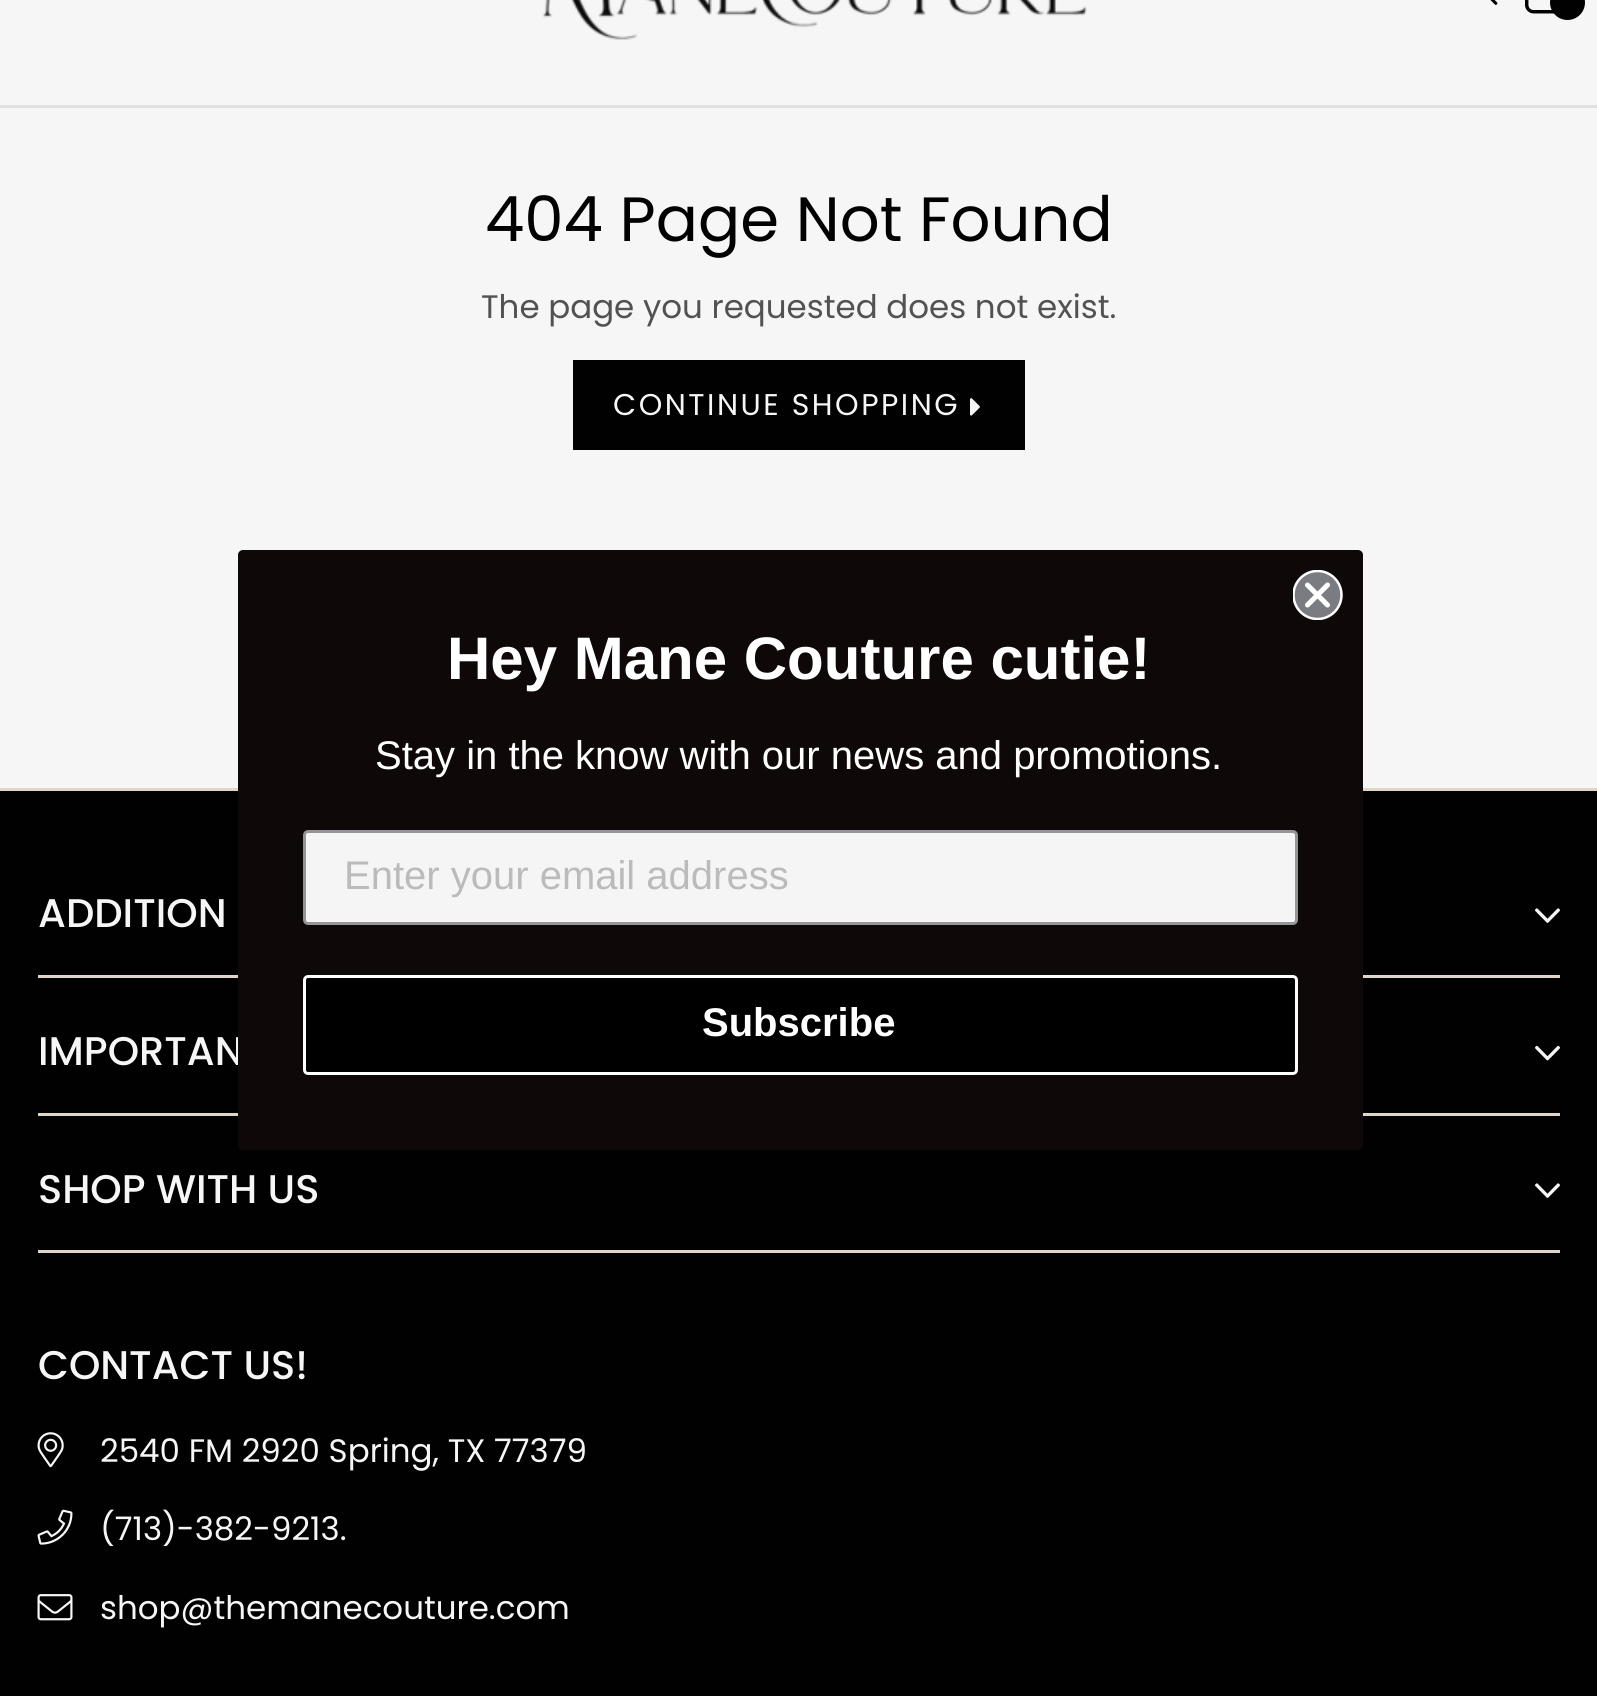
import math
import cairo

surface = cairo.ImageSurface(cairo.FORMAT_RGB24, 1597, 1696)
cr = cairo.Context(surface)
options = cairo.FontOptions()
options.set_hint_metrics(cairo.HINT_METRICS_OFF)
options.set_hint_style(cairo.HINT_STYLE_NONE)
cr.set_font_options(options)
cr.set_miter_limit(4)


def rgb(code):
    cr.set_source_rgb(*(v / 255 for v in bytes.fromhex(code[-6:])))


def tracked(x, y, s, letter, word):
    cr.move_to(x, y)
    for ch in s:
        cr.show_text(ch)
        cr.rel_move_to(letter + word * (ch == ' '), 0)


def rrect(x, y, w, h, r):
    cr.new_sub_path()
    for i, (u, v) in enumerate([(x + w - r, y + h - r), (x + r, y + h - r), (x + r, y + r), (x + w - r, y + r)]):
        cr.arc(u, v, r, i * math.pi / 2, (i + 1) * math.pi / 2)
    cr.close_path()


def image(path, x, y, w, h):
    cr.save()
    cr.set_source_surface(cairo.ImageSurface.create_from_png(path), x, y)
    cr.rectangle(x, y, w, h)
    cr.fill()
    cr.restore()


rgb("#f6f6f6")
cr.paint()
rgb("#e0e0e2")
cr.rectangle(0, 105, 1597, 3)
cr.fill()
image("img/1.png", 542, 0, 545, 40)
image("img/2.png", 1490, 0, 8, 5)
image("img/3.png", 1525, 0, 30, 14)
rgb("#010101")
cr.arc(1567.5, 2.5, 17.5, 0, 2 * math.pi)
cr.fill()
cr.rectangle(573, 360, 452, 90)
cr.fill()
image("img/4.png", 970, 398, 10, 18)
cr.rectangle(0, 791, 1597, 905)
cr.fill()
rgb("#e0d5c9")
cr.rectangle(0, 788, 1597, 3)
cr.fill()
image("img/5.png", 1535, 908, 25, 15)
cr.rectangle(38, 975, 1522, 3)
cr.fill()
image("img/6.png", 1535, 1045, 25, 16)
cr.rectangle(38, 1113, 1522, 3)
cr.fill()
image("img/5.png", 1535, 1183, 25, 15)
cr.rectangle(38, 1250, 1522, 3)
cr.fill()
image("img/7.png", 37, 1432, 27, 36)
image("img/8.png", 37, 1509, 36, 36)
image("img/9.png", 37, 1594, 36, 27)
cr.select_font_face("Poppins")
cr.set_font_size(62.5)
rgb("#010101")
cr.move_to(485, 241)
cr.show_text("404 Page Not Found")
cr.set_font_size(32.5)
rgb("#525252")
cr.move_to(481, 318)
cr.show_text("The page you requested does not exist.")
cr.set_font_size(30)
rgb("#f6f6f6")
tracked(613, 415, "CONTINUE SHOPPING", 2.5, 0)
cr.select_font_face("Poppins Medium")
cr.set_font_size(40)
for x, y, s in [
    (38, 927, "ADDITION"),
    (38, 1065, "IMPORTAN"),
    (38, 1203, "SHOP WITH US"),
    (38, 1379, "CONTACT US!"),
]:
    cr.move_to(x, y)
    cr.show_text(s)
cr.select_font_face("Poppins")
cr.set_font_size(32.5)
for x, y, s in [
    (100, 1462, "2540 FM 2920 Spring, TX 77379"),
    (100, 1540, "(713)-382-9213."),
    (100, 1619, "shop@themanecouture.com"),
]:
    cr.move_to(x, y)
    cr.show_text(s)
rgb("#0f0808")
rrect(238, 550, 1125, 600, 5)
cr.fill()
rgb("#7a7c82")
cr.arc(1317.5, 595, 24, 0, 2 * math.pi)
cr.fill()
cr.save()
cr.rectangle(1293, 570, 50, 50)
cr.clip()
cr.arc(1317.5, 595, 24, 0, 2 * math.pi)
rgb("#ffffff")
cr.set_line_width(2.5)
cr.stroke()
cr.restore()
cr.new_path()
cr.move_to(1307.5, 585)
cr.line_to(1327.5, 605)
cr.move_to(1307.5, 605)
cr.line_to(1327.5, 585)
cr.close_path()
rgb("#ffffff")
cr.set_line_width(5)
cr.set_line_cap(cairo.LINE_CAP_ROUND)
cr.set_line_join(cairo.LINE_JOIN_ROUND)
cr.stroke()
cr.select_font_face("Liberation Sans", cairo.FONT_SLANT_NORMAL, cairo.FONT_WEIGHT_BOLD)
cr.set_font_size(60)
cr.move_to(447, 679)
cr.show_text("Hey Mane Couture cutie!")
cr.select_font_face("Liberation Sans")
cr.set_font_size(40)
cr.move_to(375, 769)
cr.show_text("Stay in the know with our news and promotions.")
rgb("#f5f5f5")
rrect(304.5, 831.5, 992, 92, 3.5)
cr.fill_preserve()
rgb("#949596")
cr.set_line_width(3)
cr.set_line_cap(cairo.LINE_CAP_BUTT)
cr.set_line_join(cairo.LINE_JOIN_MITER)
cr.stroke()
rgb("#bbbbbc")
cr.move_to(344, 889)
cr.show_text("Enter your email address")
rgb("#000000")
rrect(304.5, 976.5, 992, 97, 3.5)
cr.fill_preserve()
rgb("#ffffff")
cr.stroke()
cr.select_font_face("Liberation Sans", cairo.FONT_SLANT_NORMAL, cairo.FONT_WEIGHT_BOLD)
cr.move_to(702, 1036)
cr.show_text("Subscribe")
surface.write_to_png("page.png")
